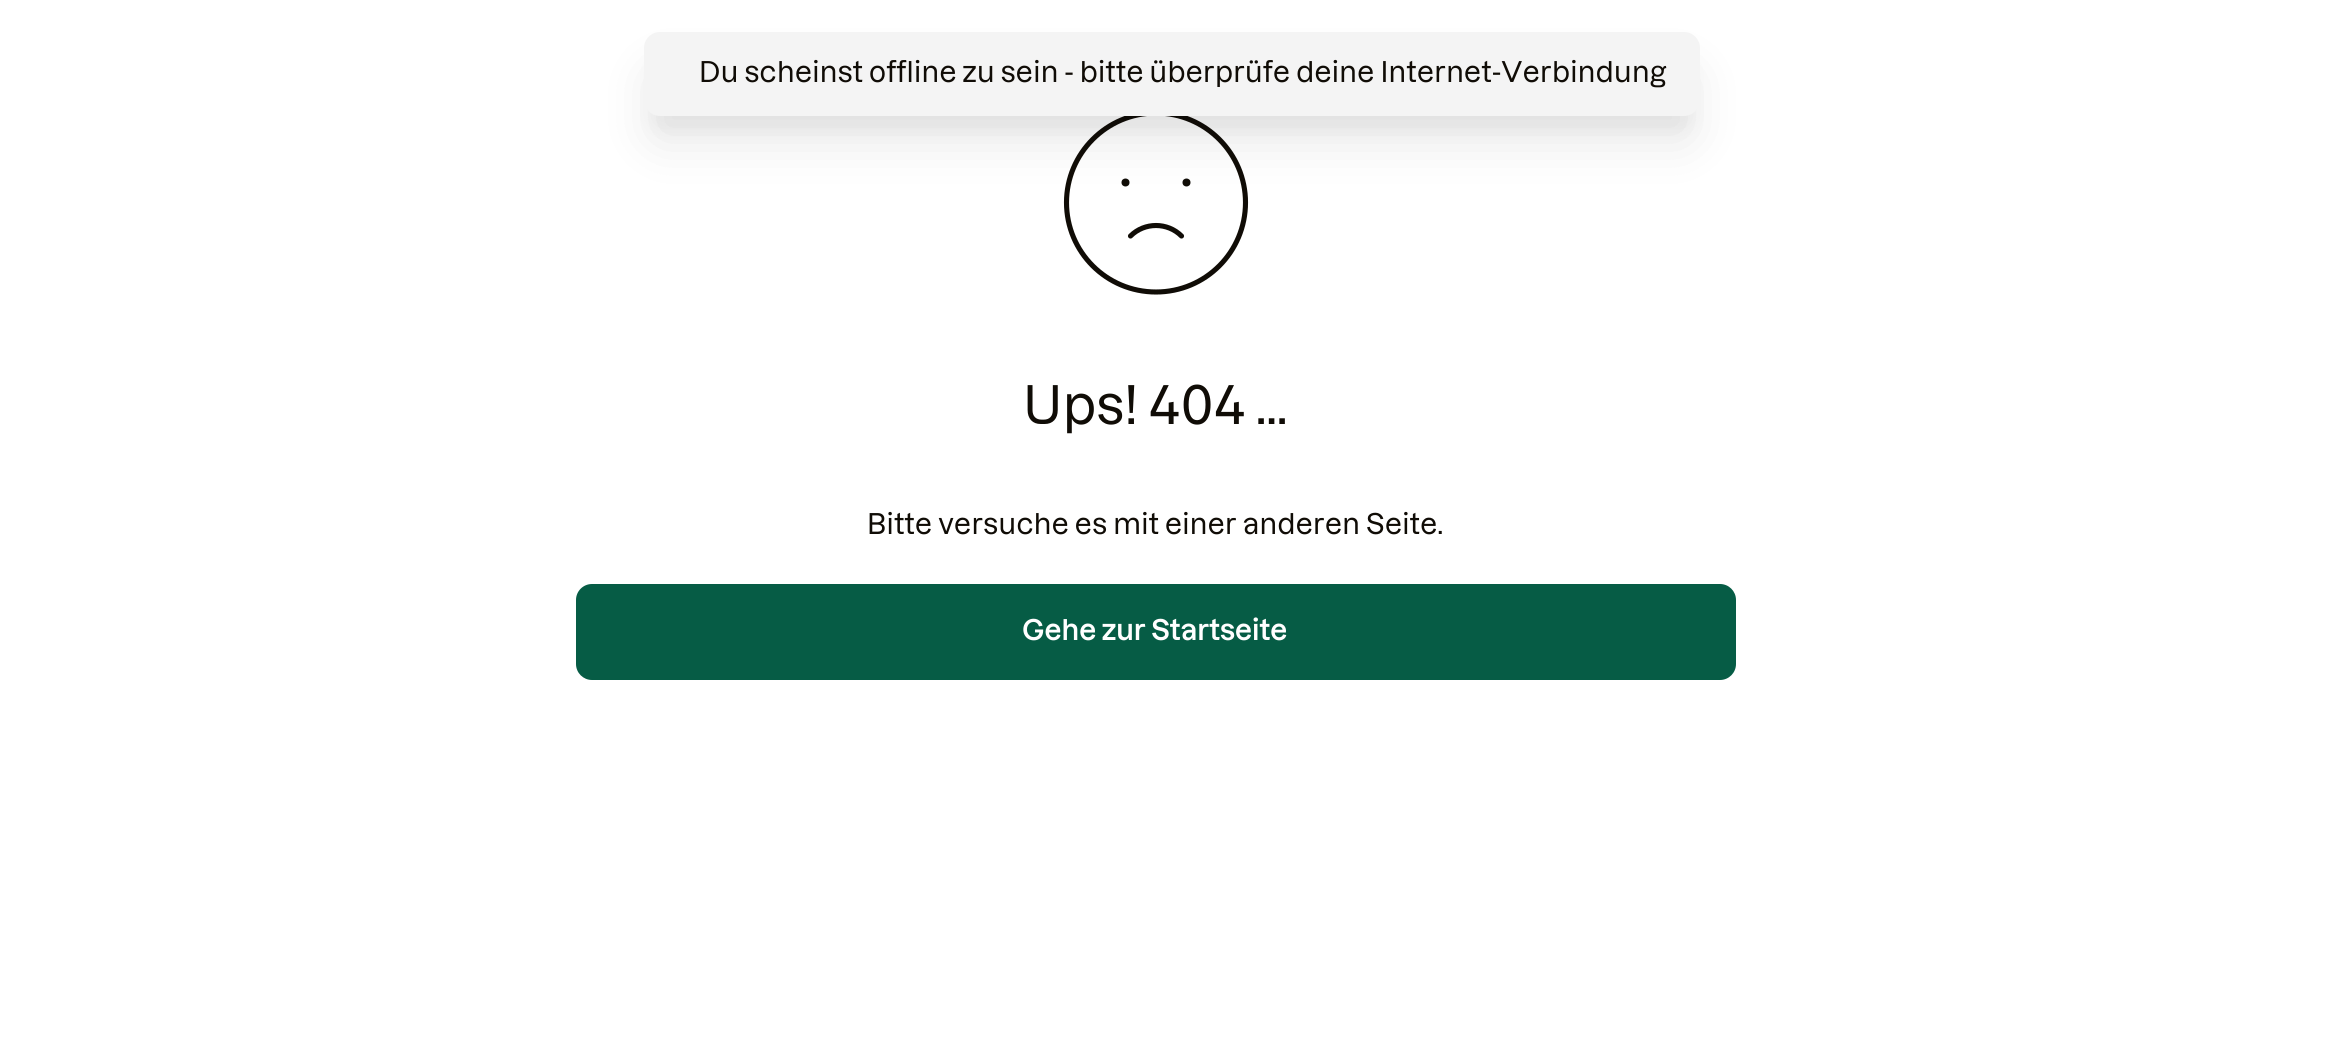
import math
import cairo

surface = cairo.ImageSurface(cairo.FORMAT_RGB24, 2341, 1041)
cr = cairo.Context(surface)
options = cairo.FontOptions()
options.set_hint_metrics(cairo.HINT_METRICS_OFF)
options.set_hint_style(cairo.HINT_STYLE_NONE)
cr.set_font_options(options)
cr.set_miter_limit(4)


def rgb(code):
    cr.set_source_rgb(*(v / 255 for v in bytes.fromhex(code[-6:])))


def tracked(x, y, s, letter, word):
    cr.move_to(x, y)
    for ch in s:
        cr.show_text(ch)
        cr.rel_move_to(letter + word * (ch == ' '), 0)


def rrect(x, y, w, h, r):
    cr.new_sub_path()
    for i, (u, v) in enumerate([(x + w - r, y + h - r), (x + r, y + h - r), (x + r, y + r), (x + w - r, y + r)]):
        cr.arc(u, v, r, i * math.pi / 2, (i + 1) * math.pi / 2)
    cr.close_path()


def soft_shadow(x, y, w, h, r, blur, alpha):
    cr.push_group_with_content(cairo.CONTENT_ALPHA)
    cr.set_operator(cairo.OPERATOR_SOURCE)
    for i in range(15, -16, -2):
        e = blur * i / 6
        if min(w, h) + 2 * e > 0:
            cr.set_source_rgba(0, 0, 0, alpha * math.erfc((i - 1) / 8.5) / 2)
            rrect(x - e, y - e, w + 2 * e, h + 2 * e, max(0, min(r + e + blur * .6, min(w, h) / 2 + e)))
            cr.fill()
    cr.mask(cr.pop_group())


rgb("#ffffff")
cr.paint()
cr.new_path()
cr.move_to(1245.5, 202.5)
cr.curve_to(1245.5, 252, 1205.5, 292, 1156, 292)
cr.curve_to(1106.5, 292, 1066.5, 252, 1066.5, 202.5)
cr.curve_to(1066.5, 153.5, 1106.5, 113, 1156, 113)
cr.curve_to(1205.5, 113, 1245.5, 153.5, 1245.5, 202.5)
cr.close_path()
rgb("#100c06")
cr.set_line_width(5.1)
cr.set_line_cap(cairo.LINE_CAP_ROUND)
cr.set_line_join(cairo.LINE_JOIN_ROUND)
cr.stroke()
rgb("#000000")
soft_shadow(652, 60, 1040, 68, 8, 10, 0.04)
rgb("#100c06")
cr.arc(1125.5, 182.5, 4, 0, 2 * math.pi)
cr.fill()
cr.arc(1186.5, 182.5, 4, 0, 2 * math.pi)
cr.fill()
rgb("#000000")
soft_shadow(652, 72, 1040, 68, 8, 24, 0.1)
rgb("#f4f4f4")
rrect(644, 32, 1056, 84, 16)
cr.fill()
cr.new_path()
cr.move_to(1130.5, 236)
cr.curve_to(1144.5, 222, 1167.5, 222, 1181.5, 236)
rgb("#100c06")
cr.stroke()
rgb("#065c45")
rrect(576, 584, 1160, 96, 16)
cr.fill()
cr.select_font_face("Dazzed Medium")
cr.set_font_size(28)
rgb("#100c06")
tracked(699, 82, "Du scheinst offline zu sein - bitte überprüfe deine Internet-Verbindung", 0.32, 0)
cr.set_font_size(52)
tracked(1023, 424, "Ups! 404 ...", 0.32, 0)
cr.set_font_size(28)
tracked(867, 534, "Bitte versuche es mit einer anderen Seite.", 0.32, 0)
cr.select_font_face("Dazzed SemiBold")
rgb("#ffffff")
cr.move_to(1022, 640)
cr.show_text("Gehe zur Startseite")
surface.write_to_png("page.png")
